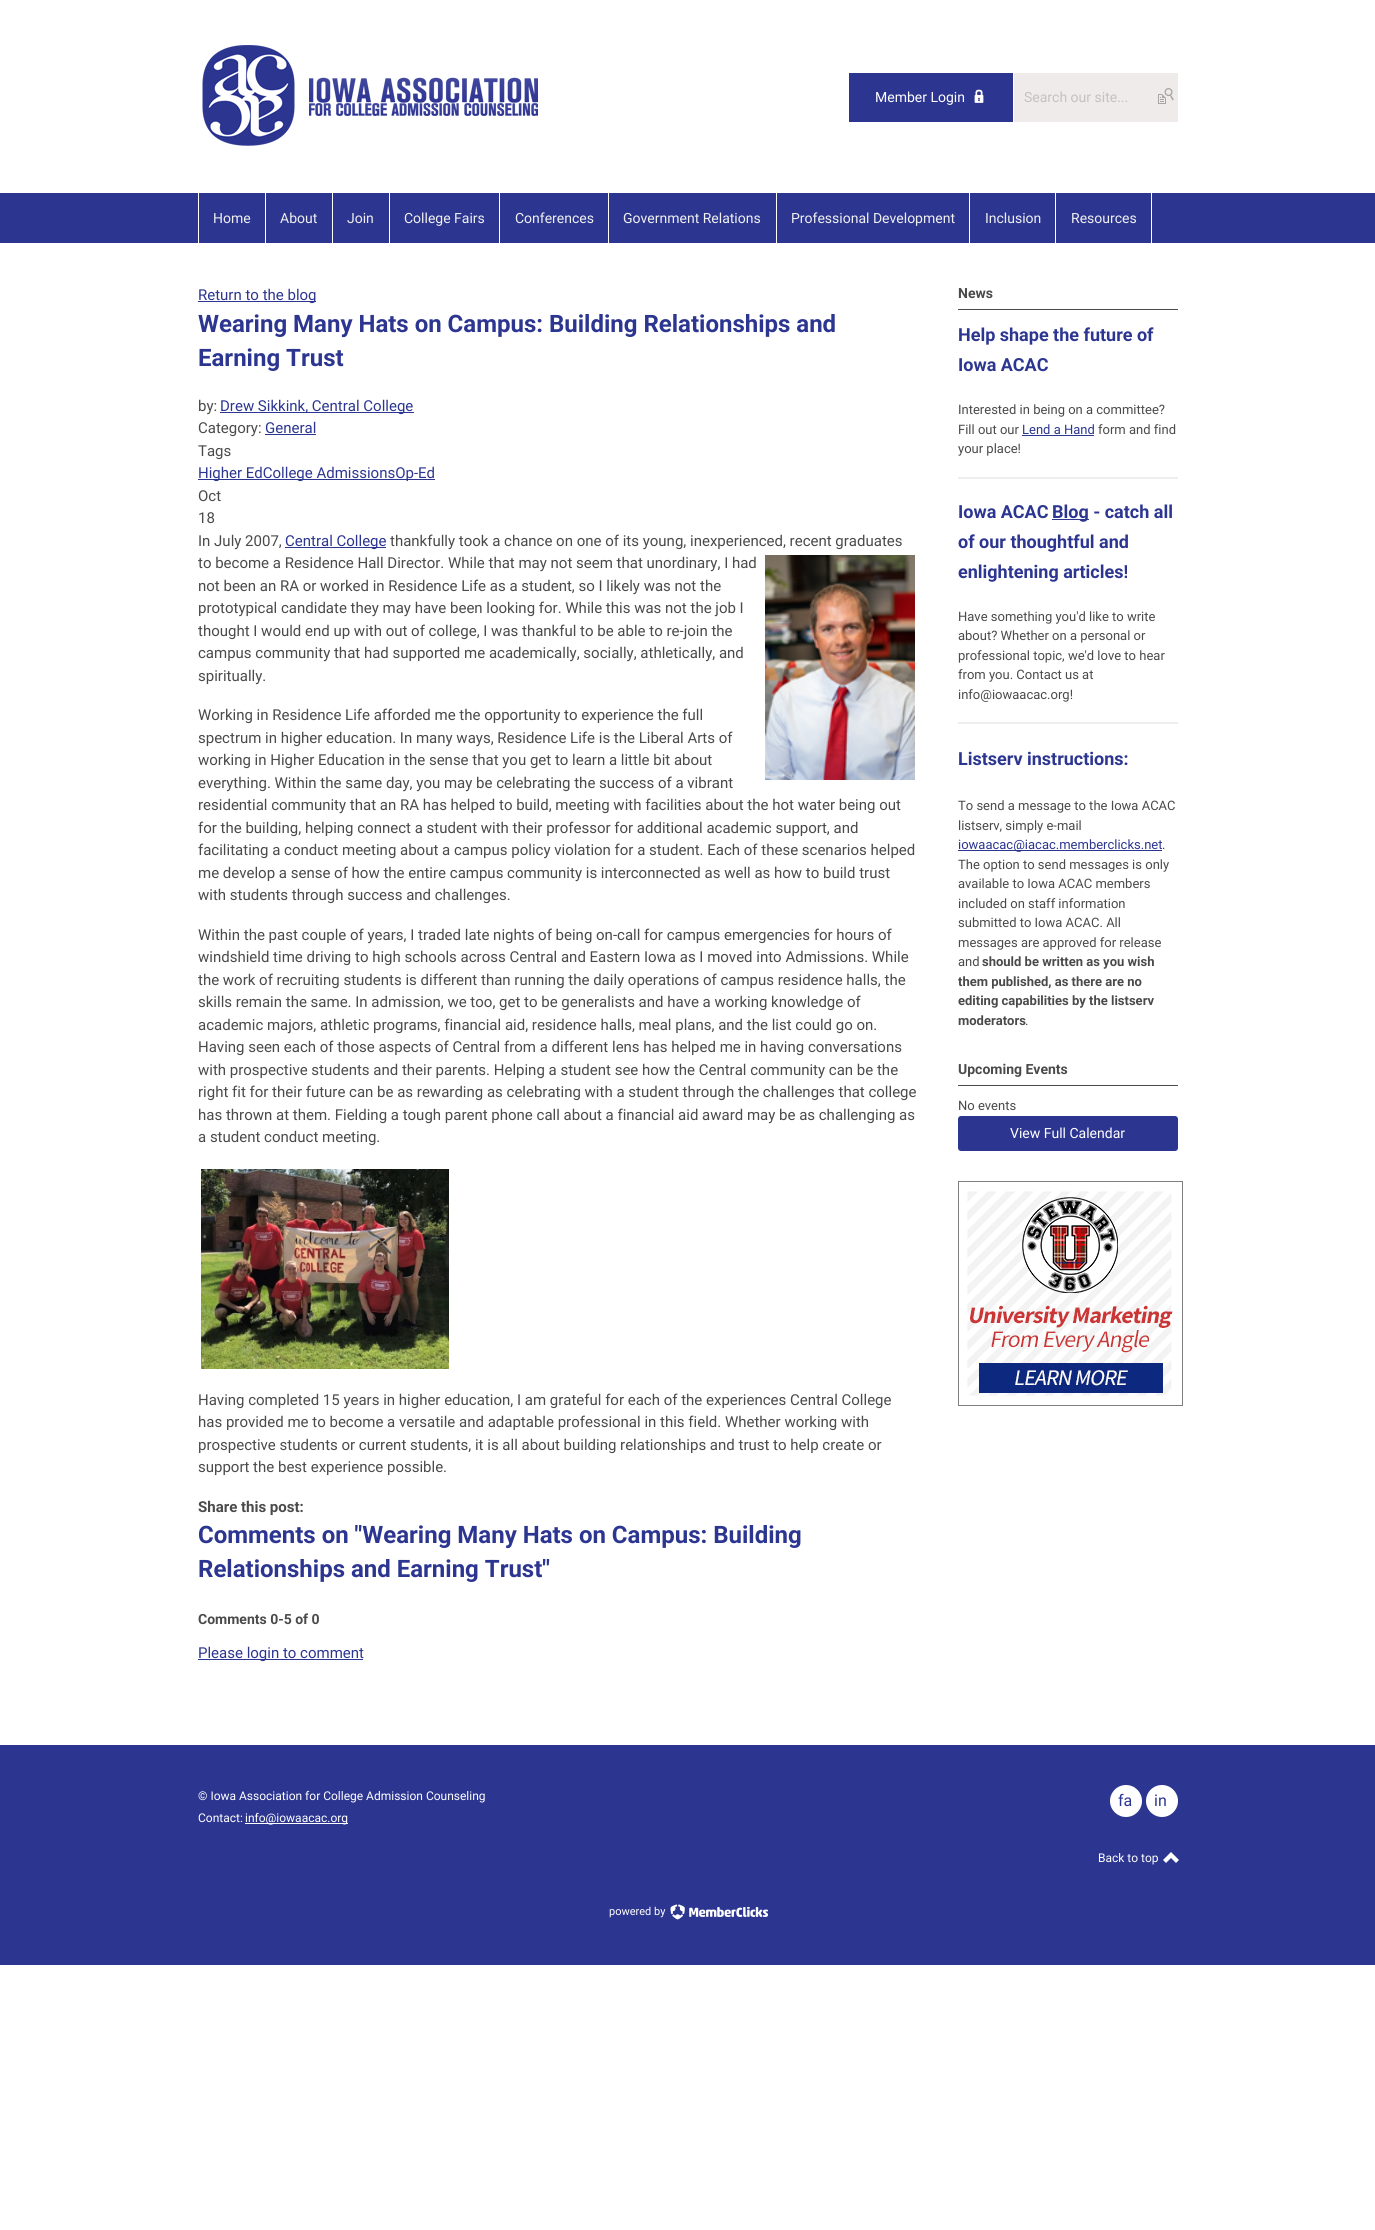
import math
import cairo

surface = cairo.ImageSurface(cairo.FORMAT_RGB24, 1375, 2230)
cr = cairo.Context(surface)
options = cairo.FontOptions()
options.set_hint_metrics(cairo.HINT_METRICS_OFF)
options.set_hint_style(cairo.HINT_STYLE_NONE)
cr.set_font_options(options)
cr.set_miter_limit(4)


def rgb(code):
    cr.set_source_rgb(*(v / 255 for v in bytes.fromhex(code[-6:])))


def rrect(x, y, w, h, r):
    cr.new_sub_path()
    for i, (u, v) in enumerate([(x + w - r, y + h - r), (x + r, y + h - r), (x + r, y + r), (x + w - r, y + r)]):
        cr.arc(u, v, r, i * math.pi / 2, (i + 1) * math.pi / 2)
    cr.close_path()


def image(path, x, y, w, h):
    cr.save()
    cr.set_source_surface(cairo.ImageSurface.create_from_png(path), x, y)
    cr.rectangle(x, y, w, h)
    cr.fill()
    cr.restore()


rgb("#ffffff")
cr.paint()
image("img/1.png", 202, 45, 336, 101)
rgb("#2c3691")
cr.rectangle(849, 73, 164, 49)
cr.fill()
image("img/2.png", 974, 89, 10, 14)
rgb("#efebeb")
cr.rectangle(1014, 73, 164, 49)
cr.fill()
image("img/3.png", 1158, 88, 16, 16)
for x, y, w, h, color in [
    (0, 193, 1375, 50, "#2c3691"),
    (198, 193, 1, 50, "#ffffff"),
    (265, 193, 1, 50, "#ffffff"),
    (332, 193, 1, 50, "#ffffff"),
    (389, 193, 1, 50, "#ffffff"),
    (499, 193, 1, 50, "#ffffff"),
    (608, 193, 1, 50, "#ffffff"),
    (776, 193, 1, 50, "#ffffff"),
    (969, 193, 1, 50, "#ffffff"),
    (1055, 193, 1, 50, "#ffffff"),
    (1151, 193, 1, 50, "#ffffff"),
    (198, 301, 118, 1, "#2c3691"),
    (220, 412, 194, 1, "#2c3691"),
    (265, 434, 51, 1, "#2c3691"),
    (198, 479, 237, 1, "#2c3691"),
    (285, 547, 101, 1, "#2c3691"),
]:
    rgb(color)
    cr.rectangle(x, y, w, h)
    cr.fill()
image("img/4.png", 765, 555, 150, 225)
image("img/5.png", 201, 1169, 248, 200)
for x, y, w, h, color in [
    (198, 1659, 165, 1, "#2c3691"),
    (958, 309, 220, 1, "#4a4a4a"),
    (1022, 435, 72, 1, "#2c3691"),
    (958, 477, 220, 2, "#eeeeee"),
    (1052, 519, 37, 1, "#2c3691"),
    (958, 722, 220, 2, "#eeeeee"),
    (958, 850, 204, 1, "#2c3691"),
    (958, 1085, 220, 1, "#4a4a4a"),
]:
    rgb(color)
    cr.rectangle(x, y, w, h)
    cr.fill()
rgb("#2c3691")
rrect(958, 1116, 220, 35, 3)
cr.fill()
image("img/6.png", 958, 1181, 225, 225)
cr.rectangle(0, 1745, 1375, 220)
cr.fill()
rgb("#ffffff")
cr.rectangle(245, 1823, 103, 1)
cr.fill()
cr.arc(1126, 1801, 16, 0, 2 * math.pi)
cr.fill()
cr.arc(1162, 1801, 16, 0, 2 * math.pi)
cr.fill()
image("img/7.png", 1163, 1852, 16, 11)
image("img/8.png", 670, 1904, 15, 16)
image("img/9.png", 689, 1906, 79, 11)
cr.select_font_face("Roboto")
cr.set_font_size(14)
cr.move_to(875, 102)
cr.show_text("Member Login")
rgb("#c4c1c1")
cr.move_to(1024, 102)
cr.show_text("Search our site...")
rgb("#f0f0f0")
for x, y, s in [
    (213, 223, "Home"),
    (280, 223, "About"),
    (347, 223, "Join"),
    (404, 223, "College Fairs"),
    (515, 223, "Conferences"),
    (623, 223, "Government Relations"),
    (791, 223, "Professional Development"),
    (985, 223, "Inclusion"),
    (1071, 223, "Resources"),
]:
    cr.move_to(x, y)
    cr.show_text(s)
cr.set_font_size(15)
rgb("#2c3691")
cr.move_to(198, 300)
cr.show_text("Return to the blog")
cr.select_font_face("Roboto", cairo.FONT_SLANT_NORMAL, cairo.FONT_WEIGHT_BOLD)
cr.set_font_size(24)
cr.move_to(198, 332)
cr.show_text("Wearing Many Hats on Campus: Building Relationships and")
cr.move_to(198, 366)
cr.show_text("Earning Trust")
cr.select_font_face("Roboto")
cr.set_font_size(15)
rgb("#4a4a4a")
cr.move_to(198, 411)
cr.show_text("by:")
rgb("#2c3691")
cr.move_to(220, 411)
cr.show_text("Drew Sikkink, Central College")
rgb("#4a4a4a")
cr.move_to(198, 433)
cr.show_text("Category:")
rgb("#2c3691")
cr.move_to(265, 433)
cr.show_text("General")
rgb("#4a4a4a")
cr.move_to(198, 456)
cr.show_text("Tags")
rgb("#2c3691")
cr.move_to(198, 478)
cr.show_text("Higher EdCollege AdmissionsOp-Ed")
rgb("#4a4a4a")
for x, y, s in [
    (198, 501, "Oct"),
    (198, 523, "18"),
    (198, 546, "In July 2007,"),
]:
    cr.move_to(x, y)
    cr.show_text(s)
rgb("#2c3691")
cr.move_to(285, 546)
cr.show_text("Central College")
rgb("#4a4a4a")
for x, y, s in [
    (390, 546, "thankfully took a chance on one of its young, inexperienced, recent graduates"),
    (198, 568, "to become a Residence Hall Director. While that may not seem that unordinary, I had"),
    (198, 591, "not been an RA or worked in Residence Life as a student, so I likely was not the"),
    (198, 613, "prototypical candidate they may have been looking for. While this was not the job I"),
    (198, 636, "thought I would end up with out of college, I was thankful to be able to re-join the"),
    (198, 658, "campus community that had supported me academically, socially, athletically, and"),
    (198, 681, "spiritually."),
    (198, 720, "Working in Residence Life afforded me the opportunity to experience the full"),
    (198, 743, "spectrum in higher education. In many ways, Residence Life is the Liberal Arts of"),
    (198, 765, "working in Higher Education in the sense that you get to learn a little bit about"),
    (198, 788, "everything. Within the same day, you may be celebrating the success of a vibrant"),
    (198, 810, "residential community that an RA has helped to build, meeting with facilities about the hot water being out"),
    (198, 833, "for the building, helping connect a student with their professor for additional academic support, and"),
    (198, 855, "facilitating a conduct meeting about a campus policy violation for a student. Each of these scenarios helped"),
    (198, 878, "me develop a sense of how the entire campus community is interconnected as well as how to build trust"),
    (198, 900, "with students through success and challenges."),
    (198, 940, "Within the past couple of years, I traded late nights of being on-call for campus emergencies for hours of"),
    (198, 962, "windshield time driving to high schools across Central and Eastern Iowa as I moved into Admissions. While"),
    (198, 985, "the work of recruiting students is different than running the daily operations of campus residence halls, the"),
    (198, 1007, "skills remain the same. In admission, we too, get to be generalists and have a working knowledge of"),
    (198, 1030, "academic majors, athletic programs, financial aid, residence halls, meal plans, and the list could go on."),
    (198, 1052, "Having seen each of those aspects of Central from a different lens has helped me in having conversations"),
    (198, 1075, "with prospective students and their parents. Helping a student see how the Central community can be the"),
    (198, 1097, "right fit for their future can be as rewarding as celebrating with a student through the challenges that college"),
    (198, 1120, "has thrown at them. Fielding a tough parent phone call about a financial aid award may be as challenging as"),
    (198, 1142, "a student conduct meeting."),
    (198, 1405, "Having completed 15 years in higher education, I am grateful for each of the experiences Central College"),
    (198, 1427, "has provided me to become a versatile and adaptable professional in this field. Whether working with"),
    (198, 1450, "prospective students or current students, it is all about building relationships and trust to help create or"),
    (198, 1472, "support the best experience possible."),
]:
    cr.move_to(x, y)
    cr.show_text(s)
cr.select_font_face("Roboto", cairo.FONT_SLANT_NORMAL, cairo.FONT_WEIGHT_BOLD)
cr.move_to(198, 1512)
cr.show_text("Share this post:")
cr.set_font_size(24)
rgb("#2c3691")
cr.move_to(198, 1543)
cr.show_text("Comments on \"Wearing Many Hats on Campus: Building")
cr.move_to(198, 1577)
cr.show_text("Relationships and Earning Trust\"")
cr.set_font_size(14)
rgb("#4a4a4a")
cr.move_to(198, 1624)
cr.show_text("Comments 0-5 of 0")
cr.select_font_face("Roboto")
cr.set_font_size(15)
rgb("#2c3691")
cr.move_to(198, 1658)
cr.show_text("Please login to comment")
cr.select_font_face("Roboto", cairo.FONT_SLANT_NORMAL, cairo.FONT_WEIGHT_BOLD)
cr.set_font_size(14)
rgb("#4a4a4a")
cr.move_to(958, 298)
cr.show_text("News")
cr.set_font_size(18)
rgb("#2c3691")
cr.move_to(958, 341)
cr.show_text("Help shape the future of")
cr.move_to(958, 371)
cr.show_text("Iowa ACAC")
cr.select_font_face("Roboto")
cr.set_font_size(13)
rgb("#4a4a4a")
cr.move_to(958, 414)
cr.show_text("Interested in being on a committee?")
cr.move_to(958, 434)
cr.show_text("Fill out our")
rgb("#2c3691")
cr.move_to(1022, 434)
cr.show_text("Lend a Hand")
rgb("#4a4a4a")
cr.move_to(1098, 434)
cr.show_text("form and find")
cr.move_to(958, 453)
cr.show_text("your place!")
cr.select_font_face("Roboto", cairo.FONT_SLANT_NORMAL, cairo.FONT_WEIGHT_BOLD)
cr.set_font_size(18)
rgb("#2c3691")
for x, y, s in [
    (958, 518, "Iowa ACAC"),
    (1052, 518, "Blog - catch all"),
    (958, 548, "of our thoughtful and"),
    (958, 578, "enlightening articles!"),
]:
    cr.move_to(x, y)
    cr.show_text(s)
cr.select_font_face("Roboto")
cr.set_font_size(13)
rgb("#4a4a4a")
for x, y, s in [
    (958, 621, "Have something you'd like to write"),
    (958, 640, "about? Whether on a personal or"),
    (958, 660, "professional topic, we'd love to hear"),
    (958, 679, "from you. Contact us at"),
    (958, 699, "info@iowaacac.org!"),
]:
    cr.move_to(x, y)
    cr.show_text(s)
cr.select_font_face("Roboto", cairo.FONT_SLANT_NORMAL, cairo.FONT_WEIGHT_BOLD)
cr.set_font_size(18)
rgb("#2c3691")
cr.move_to(958, 765)
cr.show_text("Listserv instructions:")
cr.select_font_face("Roboto")
cr.set_font_size(13)
rgb("#4a4a4a")
cr.move_to(958, 810)
cr.show_text("To send a message to the Iowa ACAC")
cr.move_to(958, 830)
cr.show_text("listserv, simply e-mail")
rgb("#2c3691")
cr.move_to(958, 849)
cr.show_text("iowaacac@iacac.memberclicks.net")
rgb("#4a4a4a")
for x, y, s in [
    (1162, 849, "."),
    (958, 869, "The option to send messages is only"),
    (958, 888, "available to Iowa ACAC members"),
    (958, 908, "included on staff information"),
    (958, 927, "submitted to Iowa ACAC. All"),
    (958, 947, "messages are approved for release"),
    (958, 966, "and"),
]:
    cr.move_to(x, y)
    cr.show_text(s)
cr.select_font_face("Roboto", cairo.FONT_SLANT_NORMAL, cairo.FONT_WEIGHT_BOLD)
for x, y, s in [
    (982, 966, "should be written as you wish"),
    (958, 986, "them published, as there are no"),
    (958, 1005, "editing capabilities by the listserv"),
    (958, 1025, "moderators"),
]:
    cr.move_to(x, y)
    cr.show_text(s)
cr.select_font_face("Roboto")
cr.move_to(1025, 1025)
cr.show_text(".")
cr.select_font_face("Roboto", cairo.FONT_SLANT_NORMAL, cairo.FONT_WEIGHT_BOLD)
cr.set_font_size(14)
cr.move_to(958, 1074)
cr.show_text("Upcoming Events")
cr.select_font_face("Roboto")
cr.set_font_size(13)
cr.move_to(958, 1110)
cr.show_text("No events")
cr.set_font_size(14)
rgb("#ffffff")
cr.move_to(1010, 1138)
cr.show_text("View Full Calendar")
cr.set_font_size(12)
for x, y, s in [
    (198, 1800, "© Iowa Association for College Admission Counseling"),
    (198, 1822, "Contact:"),
    (245, 1822, "info@iowaacac.org"),
]:
    cr.move_to(x, y)
    cr.show_text(s)
cr.set_font_size(16)
rgb("#2c3691")
cr.move_to(1118, 1806)
cr.show_text("fa")
cr.move_to(1154, 1806)
cr.show_text("in")
cr.set_font_size(12)
rgb("#ffffff")
cr.move_to(1098, 1862)
cr.show_text("Back to top")
cr.set_font_size(11)
cr.move_to(609, 1915)
cr.show_text("powered by")
surface.write_to_png("page.png")
